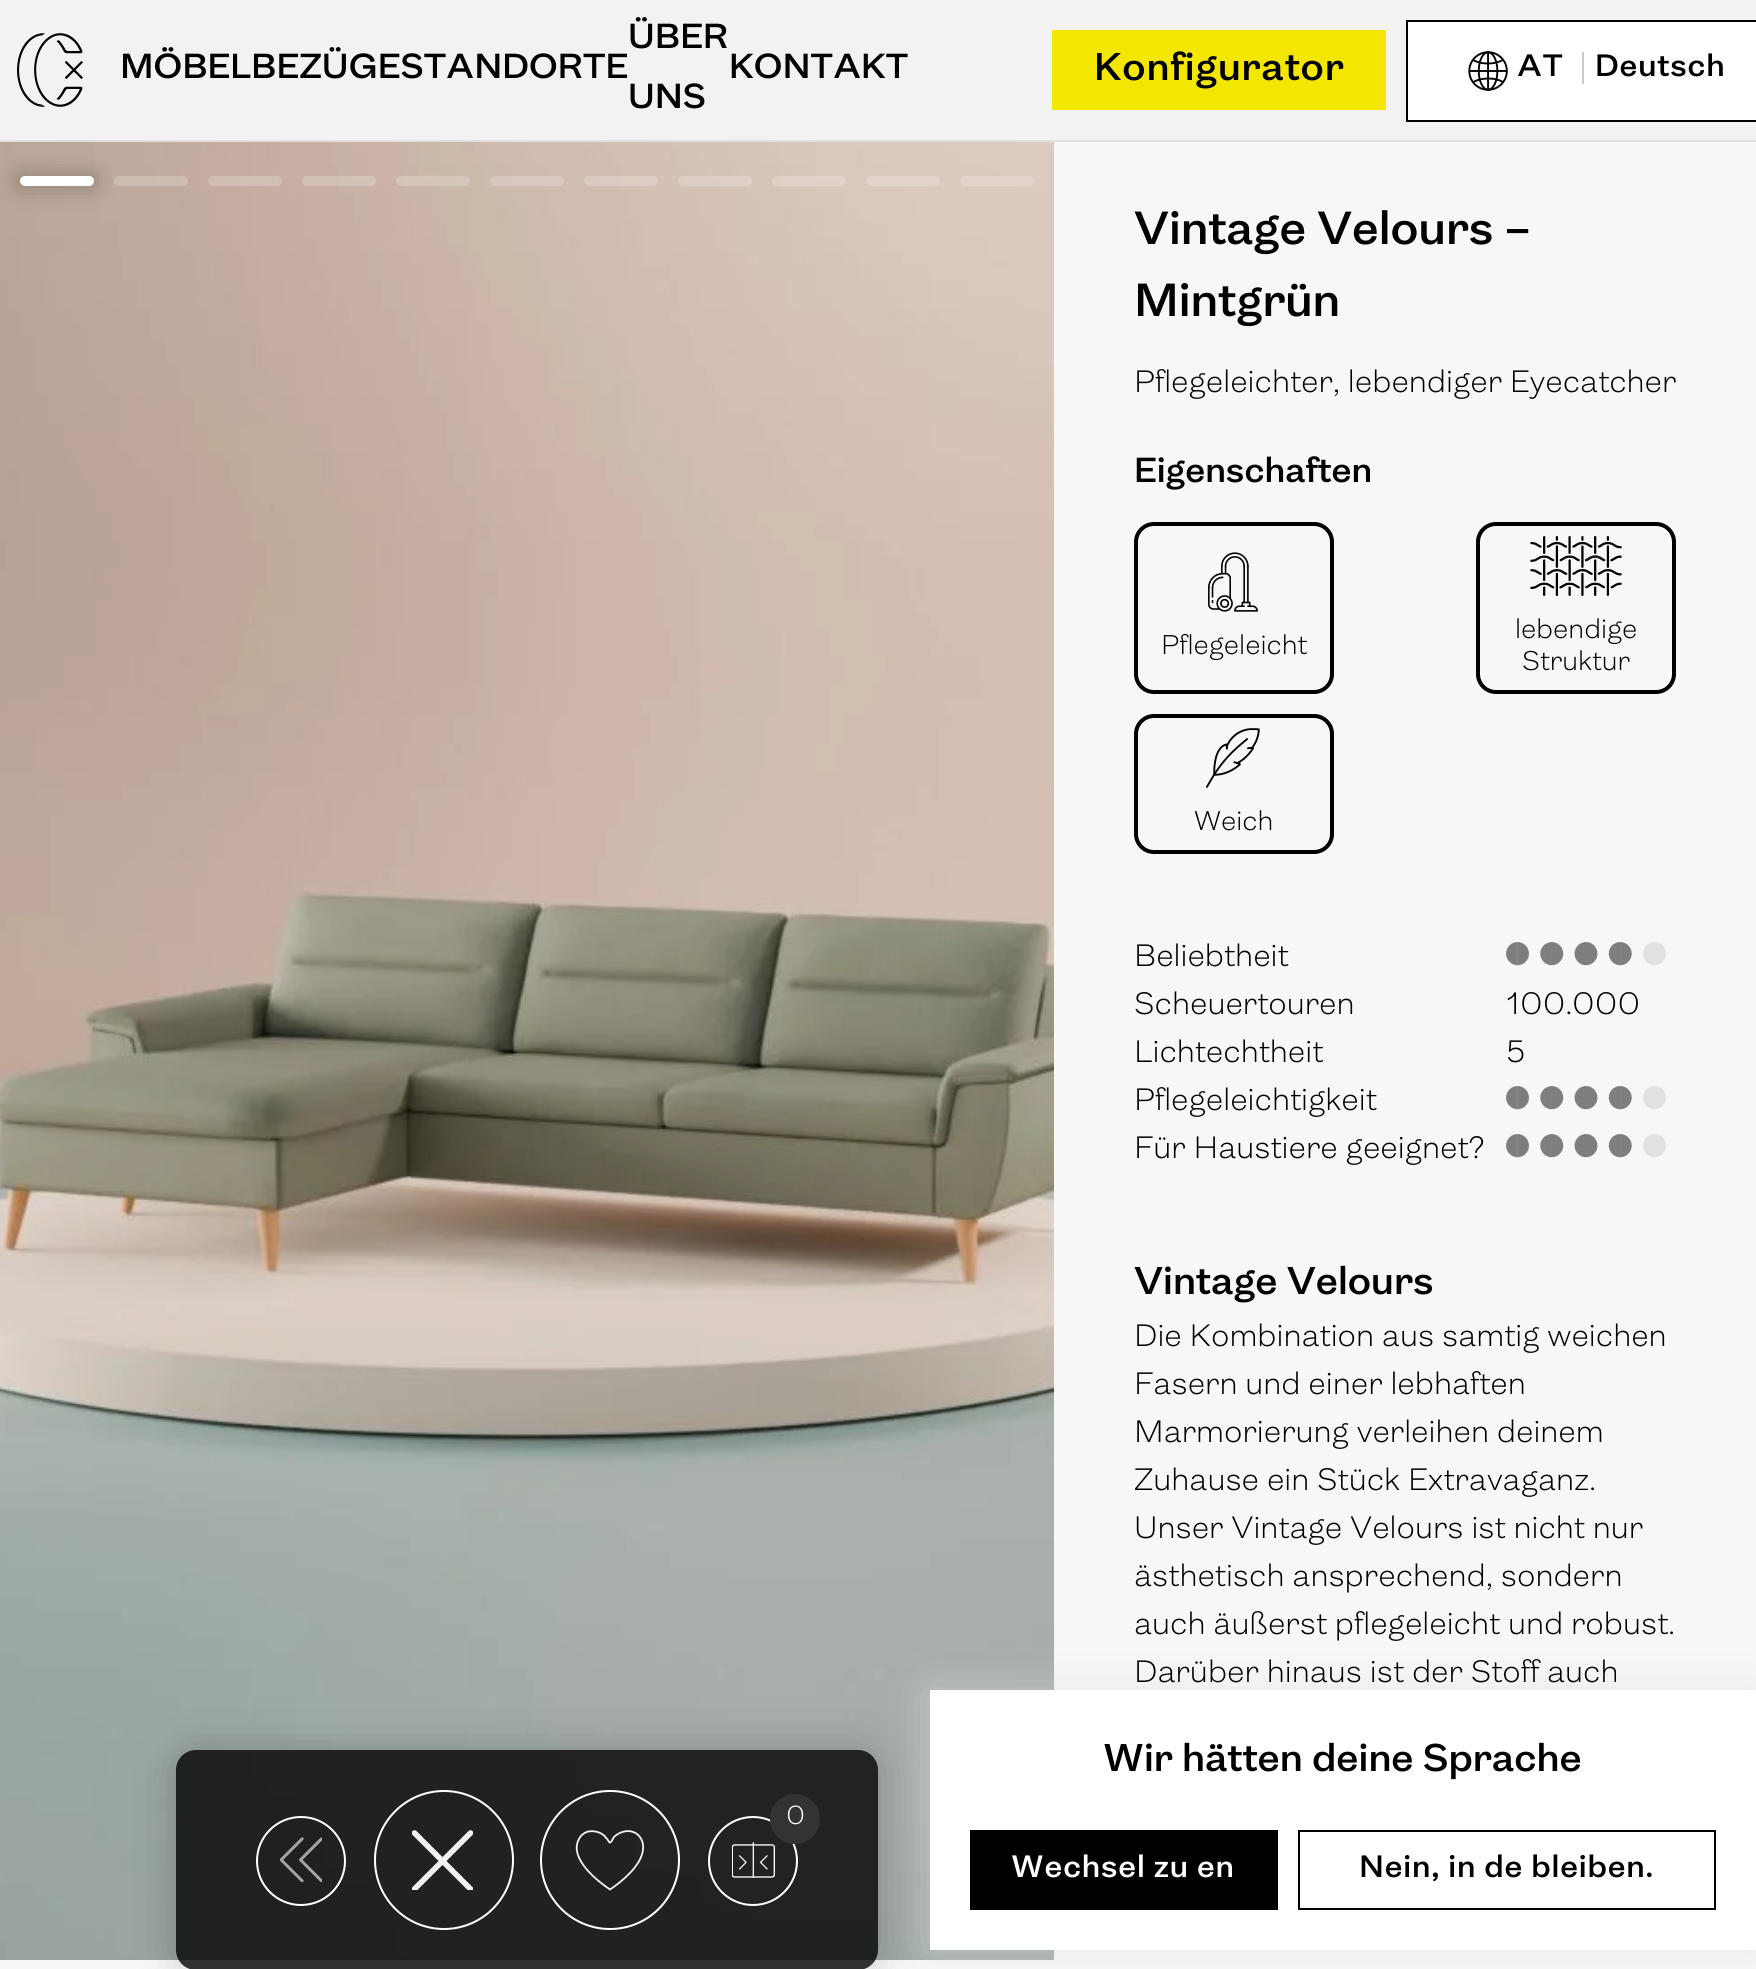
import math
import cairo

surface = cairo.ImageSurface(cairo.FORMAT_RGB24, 1756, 1969)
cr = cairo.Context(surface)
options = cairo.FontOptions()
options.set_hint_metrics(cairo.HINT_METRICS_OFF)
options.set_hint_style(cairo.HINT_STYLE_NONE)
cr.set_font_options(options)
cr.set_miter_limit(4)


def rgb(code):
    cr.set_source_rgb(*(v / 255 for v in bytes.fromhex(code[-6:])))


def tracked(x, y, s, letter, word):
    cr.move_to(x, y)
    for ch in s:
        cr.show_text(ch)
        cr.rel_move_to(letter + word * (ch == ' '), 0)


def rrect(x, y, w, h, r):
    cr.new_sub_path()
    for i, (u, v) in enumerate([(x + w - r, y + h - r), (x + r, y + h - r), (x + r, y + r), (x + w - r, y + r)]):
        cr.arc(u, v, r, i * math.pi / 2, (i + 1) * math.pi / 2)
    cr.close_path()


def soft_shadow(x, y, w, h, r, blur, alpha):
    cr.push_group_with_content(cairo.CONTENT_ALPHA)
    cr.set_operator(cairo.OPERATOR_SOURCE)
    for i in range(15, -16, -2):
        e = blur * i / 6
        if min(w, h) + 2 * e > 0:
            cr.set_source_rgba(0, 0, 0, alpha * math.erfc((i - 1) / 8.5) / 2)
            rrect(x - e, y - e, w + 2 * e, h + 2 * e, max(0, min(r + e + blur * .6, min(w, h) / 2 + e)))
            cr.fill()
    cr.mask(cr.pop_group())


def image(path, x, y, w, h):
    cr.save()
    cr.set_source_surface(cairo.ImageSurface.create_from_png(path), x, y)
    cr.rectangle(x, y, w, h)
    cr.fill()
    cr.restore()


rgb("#f7f7f7")
cr.paint()
rgb("#f2f2f2")
cr.rectangle(0, 0, 1756, 140)
cr.fill()
image("img/3.png", 0, 142, 1054, 1818)
rgb("#000000")
soft_shadow(16, 172, 82, 18, 9, 10, 0.2)
rgb("#e0e0e0")
cr.rectangle(0, 140, 1756, 2)
cr.fill()
image("img/1.png", 17, 33, 66, 74)
rgb("#f3e600")
cr.rectangle(1052, 30, 334, 80)
cr.fill()
rgb("#ffffff")
cr.rectangle(1407, 21, 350, 100)
cr.fill_preserve()
rgb("#000000")
cr.stroke()
image("img/2.png", 1468, 51, 40, 40)
rgb("#cccccc")
cr.rectangle(1582, 52, 2, 32)
cr.fill()
rgb("#ffffff")
rrect(20, 176, 74, 10, 5)
cr.fill()
cr.set_source_rgba(1, 1, 1, 0.2)
rrect(114, 176, 74, 10, 5)
cr.fill()
rrect(208, 176, 74, 10, 5)
cr.fill()
rrect(302, 176, 74, 10, 5)
cr.fill()
rrect(396, 176, 74, 10, 5)
cr.fill()
rrect(490, 176, 74, 10, 5)
cr.fill()
rrect(584, 176, 74, 10, 5)
cr.fill()
rrect(678, 176, 74, 10, 5)
cr.fill()
rrect(772, 176, 74, 10, 5)
cr.fill()
rgb("#e2d3cb")
rrect(866, 176, 74, 10, 5)
cr.fill()
rgb("#e2d4cc")
rrect(960, 176, 74, 10, 5)
cr.fill()
rrect(1136, 524, 196, 168, 18)
rgb("#000000")
cr.set_line_width(4)
cr.stroke()
image("img/4.png", 1208, 552, 50, 60)
rrect(1478, 524, 196, 168, 18)
cr.stroke()
image("img/5.png", 1530, 536, 92, 60)
rrect(1136, 716, 196, 136, 18)
cr.stroke()
image("img/6.png", 1206, 728, 54, 60)
image("img/7.png", 1506, 942, 160, 24)
image("img/7.png", 1506, 1086, 160, 24)
image("img/7.png", 1506, 1134, 160, 24)
rgb("#dedede")
soft_shadow(930, 1690, 826, 260, 0, 20, 0.6)
rgb("#ffffff")
cr.rectangle(930, 1690, 826, 260)
cr.fill()
cr.save()
cr.set_fill_rule(cairo.FILL_RULE_EVEN_ODD)
cr.new_path()
cr.move_to(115, 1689)
cr.line_to(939, 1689)
cr.line_to(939, 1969)
cr.line_to(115, 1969)
cr.close_path()
cr.move_to(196, 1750)
cr.line_to(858, 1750)
cr.curve_to(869, 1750, 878, 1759, 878, 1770)
cr.line_to(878, 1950)
cr.curve_to(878, 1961, 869, 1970, 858, 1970)
cr.line_to(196, 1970)
cr.curve_to(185, 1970, 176, 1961, 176, 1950)
cr.line_to(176, 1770)
cr.curve_to(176, 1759, 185, 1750, 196, 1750)
cr.close_path()
cr.clip()
rgb("#000000")
soft_shadow(176, 1750, 702, 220, 20, 20, 0.2)
cr.restore()
cr.set_source_rgba(0, 0, 0, 0.8)
rrect(176, 1750, 702, 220, 20)
cr.fill()
cr.arc(301, 1861, 44, 0, 2 * math.pi)
rgb("#ffffff")
cr.set_line_width(2)
cr.stroke()
image("img/8.png", 280, 1837, 42, 45)
cr.arc(444, 1860, 69, 0, 2 * math.pi)
cr.stroke()
cr.save()
cr.rectangle(412, 1830, 61, 60)
cr.clip()
cr.new_path()
cr.move_to(414.5, 1833)
cr.line_to(470.5, 1889)
cr.move_to(470.5, 1833)
cr.line_to(414.5, 1889)
rgb("#f3f2f4")
cr.set_line_width(5.6)
cr.set_line_cap(cairo.LINE_CAP_ROUND)
cr.stroke()
cr.restore()
cr.arc(610, 1860, 69, 0, 2 * math.pi)
cr.stroke()
cr.new_path()
cr.move_to(610, 1889.5)
cr.curve_to(596.5, 1880.5, 569.5, 1858.5, 578.5, 1840)
cr.curve_to(580.5, 1835.5, 584, 1832.5, 588.5, 1831.5)
cr.curve_to(594, 1830.5, 600, 1832, 604, 1835.5)
cr.line_to(607.5, 1839.5)
cr.curve_to(608, 1840, 609, 1842.5, 610, 1842.5)
cr.curve_to(611.5, 1842.5, 613, 1838, 614, 1837)
cr.curve_to(616, 1835, 618.5, 1833.5, 621, 1832.5)
cr.curve_to(633.5, 1827.5, 644.5, 1836.5, 643, 1849.5)
cr.curve_to(641.5, 1865.5, 622, 1881.5, 610, 1889.5)
cr.close_path()
rgb("#f3f2f4")
cr.set_line_width(1.8)
cr.set_line_cap(cairo.LINE_CAP_ROUND)
cr.stroke()
cr.arc(753, 1861, 44, 0, 2 * math.pi)
rgb("#ffffff")
cr.set_line_width(2)
cr.set_line_cap(cairo.LINE_CAP_BUTT)
cr.stroke()
image("img/9.png", 732, 1842, 43, 36)
rgb("#333333")
cr.arc(795, 1819, 25, 0, 2 * math.pi)
cr.fill()
rgb("#000000")
cr.rectangle(970, 1830, 308, 80)
cr.fill()
cr.rectangle(1299, 1831, 416, 78)
cr.stroke()
cr.select_font_face("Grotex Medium")
cr.set_font_size(36)
for x, y, s in [
    (120, 78, "MÖBELBEZÜGESTANDORTE"),
    (628, 48, "ÜBER"),
    (628, 108, "UNS"),
    (729, 78, "KONTAKT"),
]:
    cr.move_to(x, y)
    cr.show_text(s)
cr.set_font_size(40)
tracked(1094, 80, "Konfigurator", 0.8, 0)
cr.set_font_size(32)
tracked(1517, 76, "AT", 0.8, 0)
tracked(1595, 76, "Deutsch", 0.8, 0)
cr.set_font_size(48)
cr.move_to(1134, 244)
cr.show_text("Vintage Velours –")
cr.move_to(1134, 316)
cr.show_text("Mintgrün")
cr.select_font_face("Grotex Light")
cr.set_font_size(32)
cr.move_to(1134, 392)
cr.show_text("Pflegeleichter, lebendiger Eyecatcher")
cr.select_font_face("Grotex Medium")
cr.set_font_size(36)
cr.move_to(1134, 482)
cr.show_text("Eigenschaften")
cr.select_font_face("Grotex Light")
cr.set_font_size(28)
for x, y, s in [
    (1161, 654, "Pflegeleicht"),
    (1515, 638, "lebendige"),
    (1522, 670, "Struktur"),
    (1194, 830, "Weich"),
]:
    cr.move_to(x, y)
    cr.show_text(s)
cr.set_font_size(32)
for x, y, s in [
    (1134, 966, "Beliebtheit"),
    (1134, 1014, "Scheuertouren"),
    (1506, 1014, "100.000"),
    (1134, 1062, "Lichtechtheit"),
    (1506, 1062, "5"),
    (1134, 1110, "Pflegeleichtigkeit"),
    (1134, 1158, "Für Haustiere geeignet?"),
]:
    cr.move_to(x, y)
    cr.show_text(s)
cr.select_font_face("Grotex Medium")
cr.set_font_size(40)
cr.move_to(1134, 1294)
cr.show_text("Vintage Velours")
cr.select_font_face("Grotex Light")
cr.set_font_size(32)
for x, y, s in [
    (1134, 1346, "Die Kombination aus samtig weichen"),
    (1134, 1394, "Fasern und einer lebhaften"),
    (1134, 1442, "Marmorierung verleihen deinem"),
    (1134, 1490, "Zuhause ein Stück Extravaganz."),
    (1134, 1538, "Unser Vintage Velours ist nicht nur"),
    (1134, 1586, "ästhetisch ansprechend, sondern"),
    (1134, 1634, "auch äußerst pflegeleicht und robust."),
    (1134, 1682, "Darüber hinaus ist der Stoff auch"),
]:
    cr.move_to(x, y)
    cr.show_text(s)
cr.set_font_size(27)
rgb("#ffffff")
cr.move_to(786, 1824)
cr.show_text("0")
cr.select_font_face("Grotex Medium")
cr.set_font_size(40)
rgb("#000000")
cr.move_to(1103, 1771)
cr.show_text("Wir hätten deine Sprache")
cr.set_font_size(32)
rgb("#ffffff")
tracked(1011, 1877, "Wechsel zu en", 0.8, 0)
rgb("#000000")
tracked(1359, 1877, "Nein, in de bleiben.", 0.8, 0)
surface.write_to_png("page.png")
